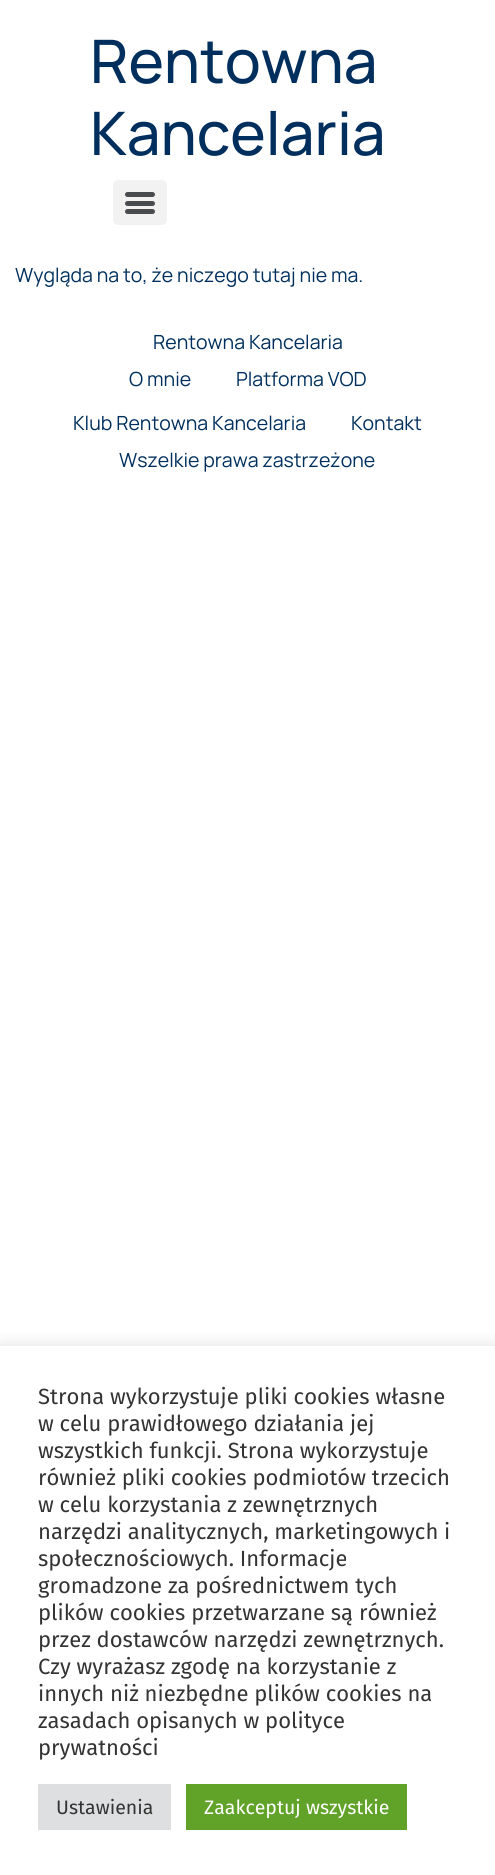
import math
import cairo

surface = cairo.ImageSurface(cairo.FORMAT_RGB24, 495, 1875)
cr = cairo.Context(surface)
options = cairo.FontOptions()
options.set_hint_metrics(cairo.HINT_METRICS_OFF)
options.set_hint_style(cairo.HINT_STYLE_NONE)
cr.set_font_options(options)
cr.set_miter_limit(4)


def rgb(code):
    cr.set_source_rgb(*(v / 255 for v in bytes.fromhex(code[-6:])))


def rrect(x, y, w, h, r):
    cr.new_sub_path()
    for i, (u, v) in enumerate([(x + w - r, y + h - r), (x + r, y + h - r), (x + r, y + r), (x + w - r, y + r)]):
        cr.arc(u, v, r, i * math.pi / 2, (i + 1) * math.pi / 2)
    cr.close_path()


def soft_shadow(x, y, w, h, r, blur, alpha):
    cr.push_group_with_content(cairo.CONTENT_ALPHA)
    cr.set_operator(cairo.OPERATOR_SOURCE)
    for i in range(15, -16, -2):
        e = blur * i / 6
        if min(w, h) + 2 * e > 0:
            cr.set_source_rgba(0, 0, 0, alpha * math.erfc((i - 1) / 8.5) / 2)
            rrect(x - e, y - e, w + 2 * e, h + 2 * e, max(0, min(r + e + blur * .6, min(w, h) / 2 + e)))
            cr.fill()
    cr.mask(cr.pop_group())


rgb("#ffffff")
cr.paint()
rgb("#f2f2f2")
rrect(113, 180, 54, 45, 5)
cr.fill()
rgb("#494c4f")
rrect(125, 201, 30, 5, 2.5)
cr.fill()
rrect(125, 192, 30, 5, 2.5)
cr.fill()
rrect(125, 209, 30, 5, 2.5)
cr.fill()
cr.save()
cr.rectangle(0, 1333, 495, 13)
cr.clip()
rgb("#acabab")
soft_shadow(0, 1344, 495, 530, 0, 7.5, 0.3)
cr.restore()
rgb("#dedfe0")
cr.rectangle(38, 1784, 133, 46)
cr.fill()
rgb("#61a229")
cr.rectangle(186, 1784, 221, 46)
cr.fill()
cr.select_font_face("Manrope Medium")
cr.set_font_size(60)
rgb("#002f5d")
cr.move_to(90, 83)
cr.show_text("Rentowna")
cr.move_to(90, 155)
cr.show_text("Kancelaria")
cr.select_font_face("Manrope")
cr.set_font_size(19.5)
for x, y, s in [
    (15, 282, "Wygląda na to, że niczego tutaj nie ma."),
    (153, 349, "Rentowna Kancelaria"),
    (129, 386, "O mnie"),
    (236, 386, "Platforma VOD"),
    (73, 430, "Klub Rentowna Kancelaria"),
    (351, 430, "Kontakt"),
    (119, 467, "Wszelkie prawa zastrzeżone"),
]:
    cr.move_to(x, y)
    cr.show_text(s)
cr.select_font_face("Fira Sans")
cr.set_font_size(22)
rgb("#333333")
for x, y, s in [
    (38, 1404, "Strona wykorzystuje pliki cookies własne"),
    (38, 1431, "w celu prawidłowego działania jej"),
    (38, 1458, "wszystkich funkcji. Strona wykorzystuje"),
    (38, 1485, "również pliki cookies podmiotów trzecich"),
    (38, 1512, "w celu korzystania z zewnętrznych"),
    (38, 1539, "narzędzi analitycznych, marketingowych i"),
    (38, 1566, "społecznościowych. Informacje"),
    (38, 1593, "gromadzone za pośrednictwem tych"),
    (38, 1620, "plików cookies przetwarzane są również"),
    (38, 1647, "przez dostawców narzędzi zewnętrznych."),
    (38, 1674, "Czy wyrażasz zgodę na korzystanie z"),
    (38, 1701, "innych niż niezbędne plików cookies na"),
    (38, 1728, "zasadach opisanych w polityce"),
    (38, 1755, "prywatności"),
]:
    cr.move_to(x, y)
    cr.show_text(s)
cr.set_font_size(19.5)
cr.move_to(56, 1814)
cr.show_text("Ustawienia")
rgb("#ffffff")
cr.move_to(204, 1814)
cr.show_text("Zaakceptuj wszystkie")
surface.write_to_png("page.png")
